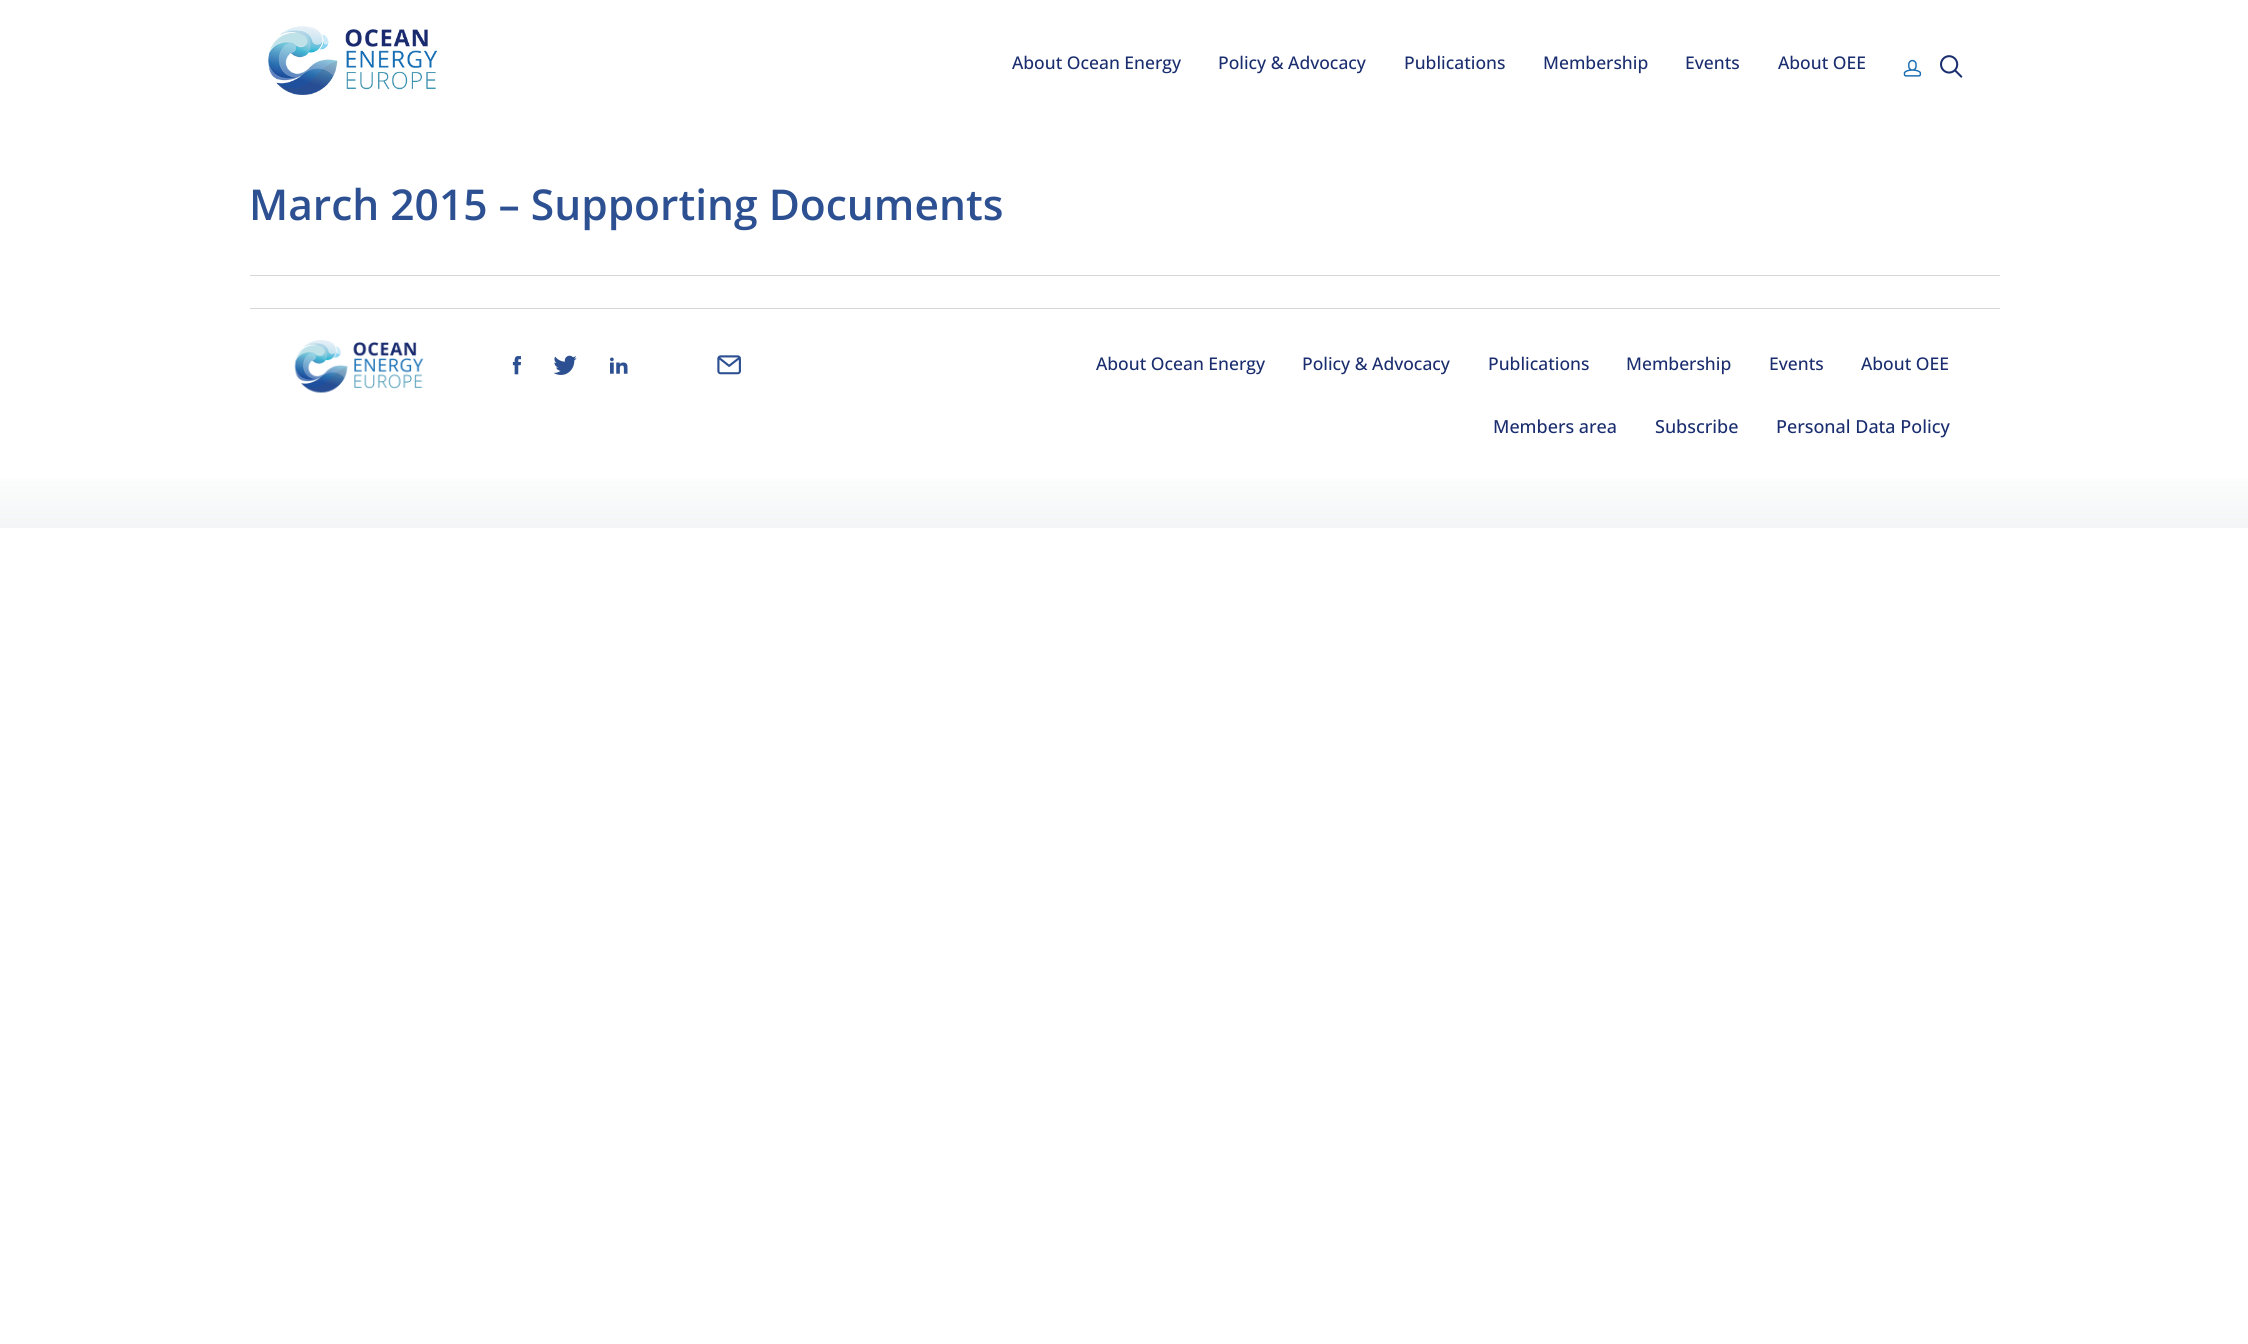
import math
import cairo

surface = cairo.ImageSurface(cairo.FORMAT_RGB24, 2248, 1344)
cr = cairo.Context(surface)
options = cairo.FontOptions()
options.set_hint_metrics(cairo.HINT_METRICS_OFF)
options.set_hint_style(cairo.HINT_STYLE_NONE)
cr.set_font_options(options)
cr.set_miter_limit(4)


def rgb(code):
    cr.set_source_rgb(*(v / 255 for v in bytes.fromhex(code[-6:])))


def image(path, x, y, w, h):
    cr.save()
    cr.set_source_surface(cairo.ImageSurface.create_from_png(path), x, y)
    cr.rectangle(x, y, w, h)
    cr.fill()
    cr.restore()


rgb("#ffffff")
cr.paint()
image("img/1.png", 268, 26, 169, 69)
image("img/2.png", 1903, 59, 19, 18)
image("img/3.png", 1940, 55, 23, 23)
rgb("#d4d7d8")
cr.rectangle(250, 275, 1750, 1)
cr.fill()
cr.rectangle(250, 308, 1750, 1)
cr.fill()
image("img/4.png", 294, 340, 130, 53)
image("img/5.png", 512, 356, 9, 19)
image("img/6.png", 553, 355, 24, 20)
image("img/7.png", 610, 357, 18, 17)
image("img/8.png", 717, 355, 24, 20)
gradient = cairo.LinearGradient(1124, 465, 1124, 528)
gradient.add_color_stop_rgba(0, 1, 1, 1, 1)
gradient.add_color_stop_rgba(1, 0.957, 0.961, 0.965, 1)
cr.set_source(gradient)
cr.rectangle(0, 479, 2248, 49)
cr.fill()
cr.select_font_face("Open Sans Medium")
cr.set_font_size(17.5)
rgb("#1a2d6e")
for x, y, s in [
    (1012, 69, "About Ocean Energy"),
    (1218, 69, "Policy & Advocacy"),
    (1404, 69, "Publications"),
    (1543, 69, "Membership"),
    (1685, 69, "Events"),
    (1778, 69, "About OEE"),
]:
    cr.move_to(x, y)
    cr.show_text(s)
cr.select_font_face("Open Sans SemiBold")
cr.set_font_size(42.5)
rgb("#2c5091")
cr.move_to(249, 220)
cr.show_text("March 2015 – Supporting Documents")
cr.select_font_face("Open Sans Medium")
cr.set_font_size(17.5)
rgb("#1a2d6e")
for x, y, s in [
    (1096, 370, "About Ocean Energy"),
    (1302, 370, "Policy & Advocacy"),
    (1488, 370, "Publications"),
    (1626, 370, "Membership"),
    (1769, 370, "Events"),
    (1861, 370, "About OEE"),
]:
    cr.move_to(x, y)
    cr.show_text(s)
cr.set_font_size(18)
for x, y, s in [
    (1493, 433, "Members area"),
    (1655, 433, "Subscribe"),
    (1776, 433, "Personal Data Policy"),
]:
    cr.move_to(x, y)
    cr.show_text(s)
surface.write_to_png("page.png")
